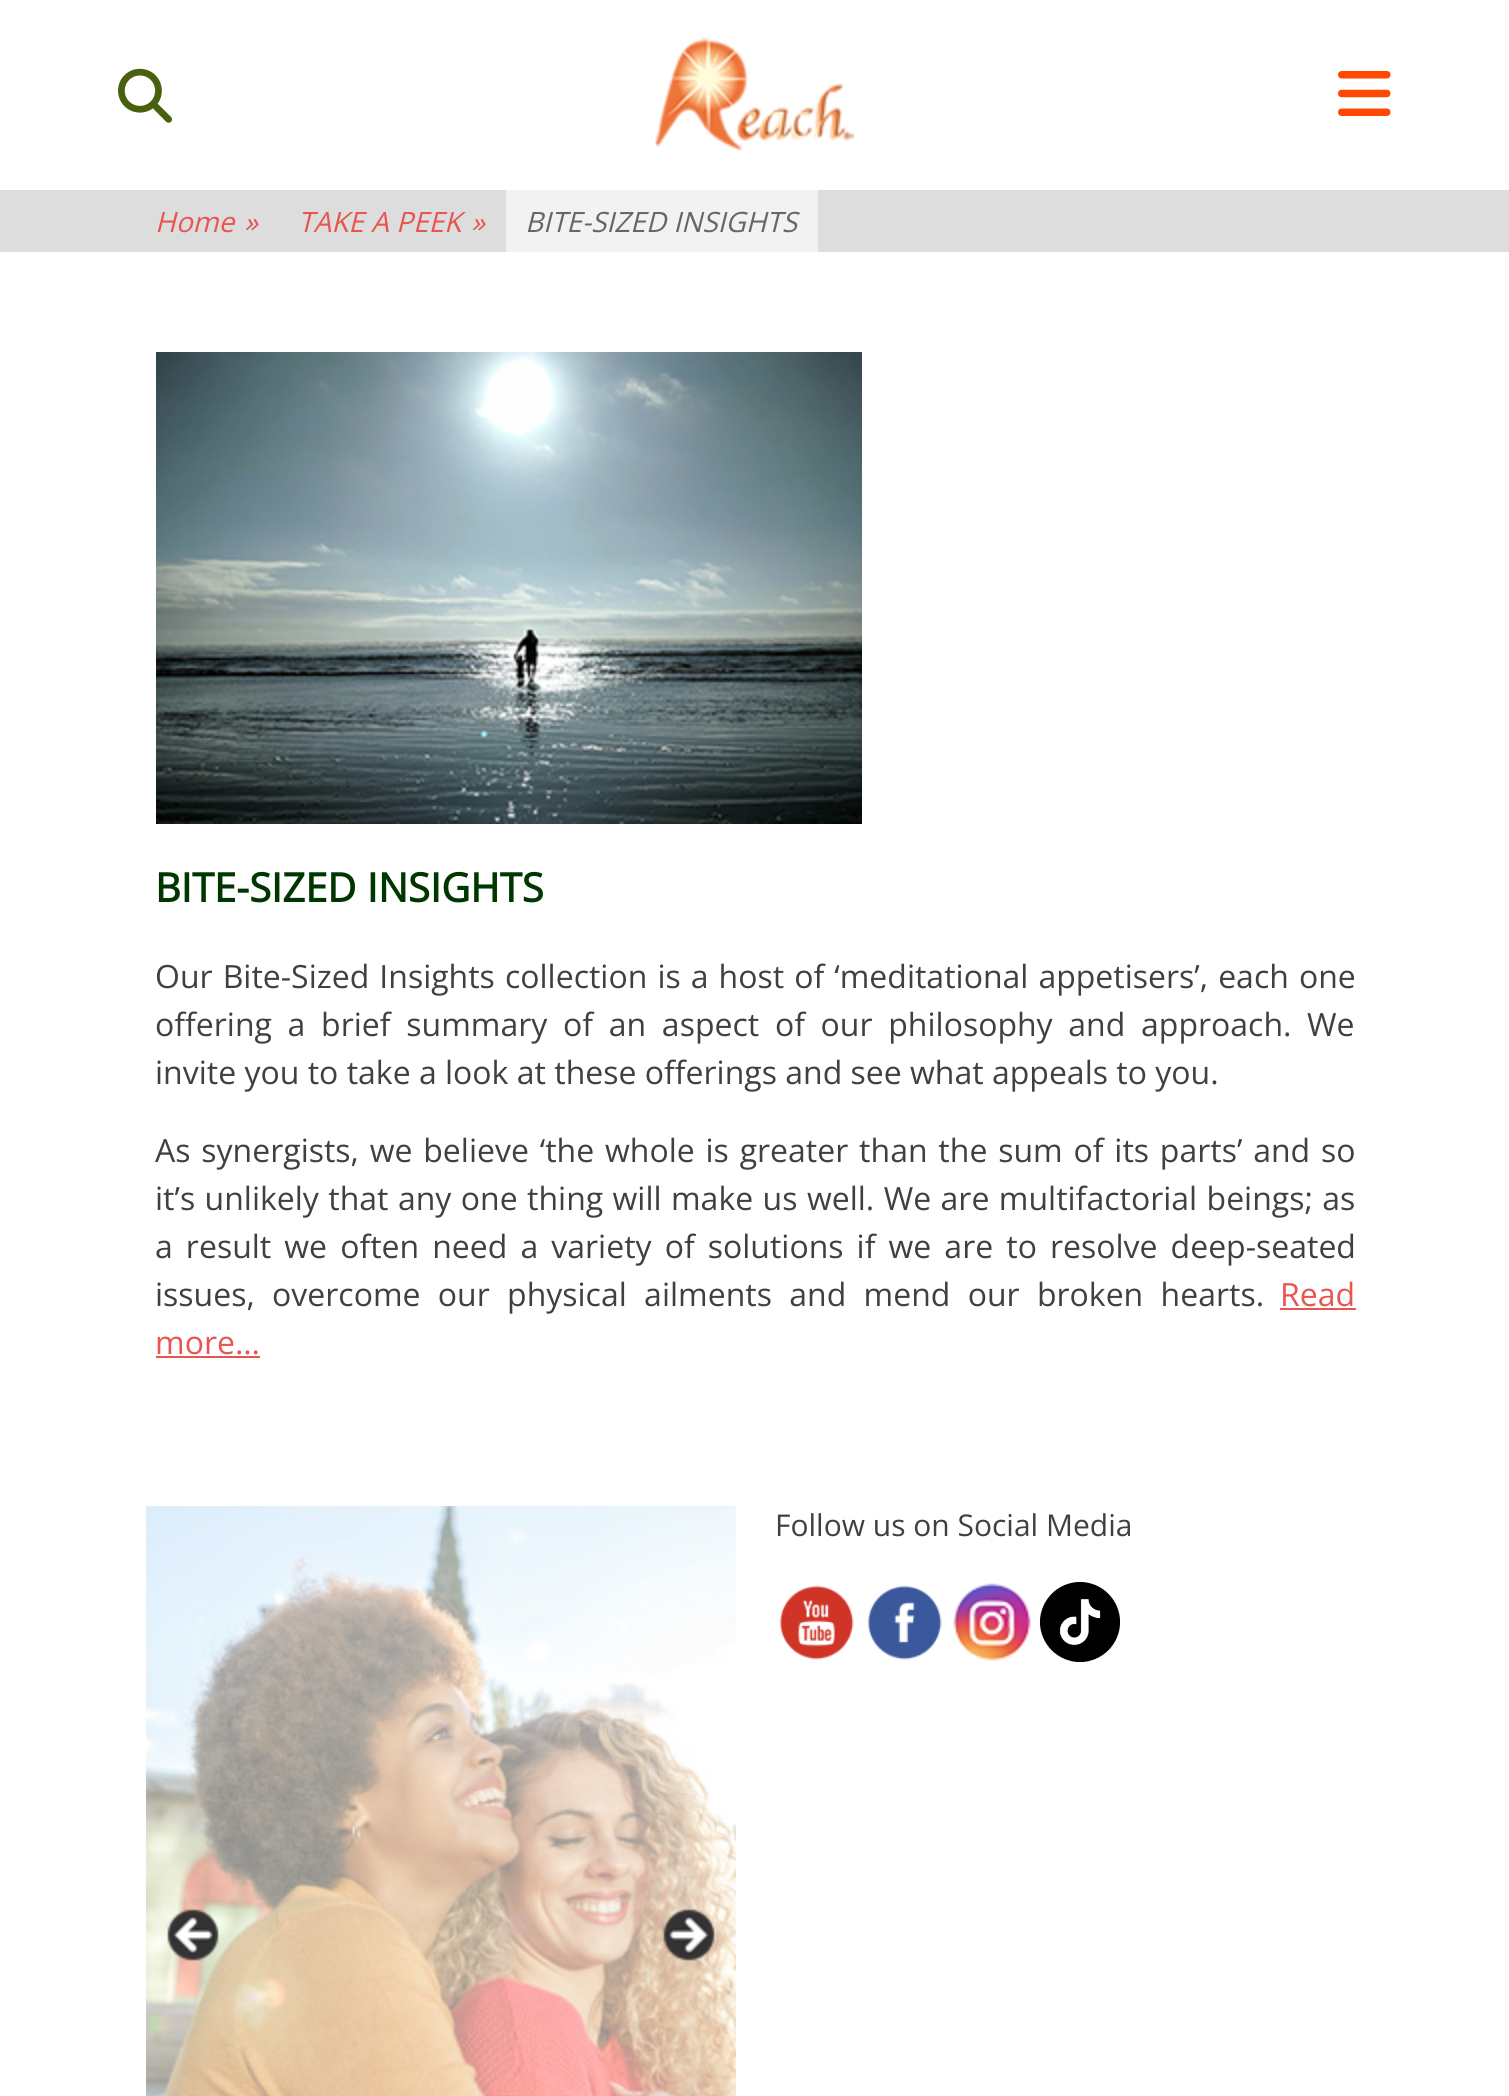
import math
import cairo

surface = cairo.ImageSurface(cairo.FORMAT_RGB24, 1509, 2096)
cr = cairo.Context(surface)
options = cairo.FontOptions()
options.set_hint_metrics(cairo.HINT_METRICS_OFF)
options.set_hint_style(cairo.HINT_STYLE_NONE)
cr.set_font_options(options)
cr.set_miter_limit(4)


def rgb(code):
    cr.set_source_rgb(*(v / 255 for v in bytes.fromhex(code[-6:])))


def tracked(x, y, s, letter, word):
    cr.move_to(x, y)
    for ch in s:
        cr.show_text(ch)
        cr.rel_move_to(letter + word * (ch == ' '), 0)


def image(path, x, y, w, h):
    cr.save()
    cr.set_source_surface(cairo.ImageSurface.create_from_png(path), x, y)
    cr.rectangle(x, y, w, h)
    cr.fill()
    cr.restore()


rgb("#ffffff")
cr.paint()
image("img/1.png", 655, 37, 200, 114)
image("img/2.png", 118, 68, 54, 55)
image("img/3.png", 1338, 71, 53, 45)
rgb("#dddddd")
cr.rectangle(0, 190, 1509, 62)
cr.fill()
rgb("#f2f2f2")
cr.rectangle(506, 190, 312, 62)
cr.fill()
image("img/4.png", 156, 352, 706, 472)
rgb("#e8554e")
cr.rectangle(1280, 1308, 76, 2)
cr.fill()
cr.rectangle(156, 1356, 104, 2)
cr.fill()
image("img/5.png", 146, 1506, 590, 590)
image("img/6.png", 167, 1909, 52, 52)
image("img/7.png", 663, 1909, 52, 52)
image("img/8.png", 779, 1585, 75, 75)
image("img/9.png", 867, 1585, 75, 75)
image("img/10.png", 953, 1583, 78, 78)
image("img/11.png", 1040, 1582, 80, 80)
cr.select_font_face("Open Sans", cairo.FONT_SLANT_ITALIC)
cr.set_font_size(28)
for x, y, s in [
    (155, 232, "Home"),
    (244, 232, "»"),
    (298, 232, "TAKE A PEEK"),
    (471, 232, "»"),
]:
    cr.move_to(x, y)
    cr.show_text(s)
rgb("#666666")
cr.move_to(525, 232)
cr.show_text("BITE-SIZED INSIGHTS")
cr.select_font_face("Open Sans", cairo.FONT_SLANT_NORMAL, cairo.FONT_WEIGHT_BOLD)
cr.set_font_size(40)
rgb("#003600")
cr.move_to(155, 902)
cr.show_text("BITE-SIZED INSIGHTS")
cr.select_font_face("Open Sans")
cr.set_font_size(32)
rgb("#404040")
tracked(155, 988, "Our Bite-Sized Insights collection is a host of ‘meditational appetisers’, each one", 0, 1.75)
tracked(155, 1036, "offering a brief summary of an aspect of our philosophy and approach.", 0, 7.4)
cr.move_to(1307, 1036)
cr.show_text("We")
cr.move_to(155, 1084)
cr.show_text("invite you to take a look at these offerings and see what appeals to you.")
tracked(155, 1162, "As synergists, we believe ‘the whole is greater than the sum of its parts’ and so", 0, 2.5)
tracked(155, 1210, "it’s unlikely that any one thing will make us well. We are multifactorial beings; as", 0, 1.1)
tracked(155, 1258, "a result we often need a variety of solutions if we are to resolve deep-seated", 0, 4.75)
tracked(155, 1306, "issues, overcome our physical ailments and mend our broken hearts.", 0, 9)
rgb("#e8554e")
cr.move_to(1280, 1306)
cr.show_text("Read")
cr.move_to(155, 1354)
cr.show_text("more…")
cr.set_font_size(30)
rgb("#404040")
cr.move_to(775, 1536)
cr.show_text("Follow us on Social Media")
surface.write_to_png("page.png")
